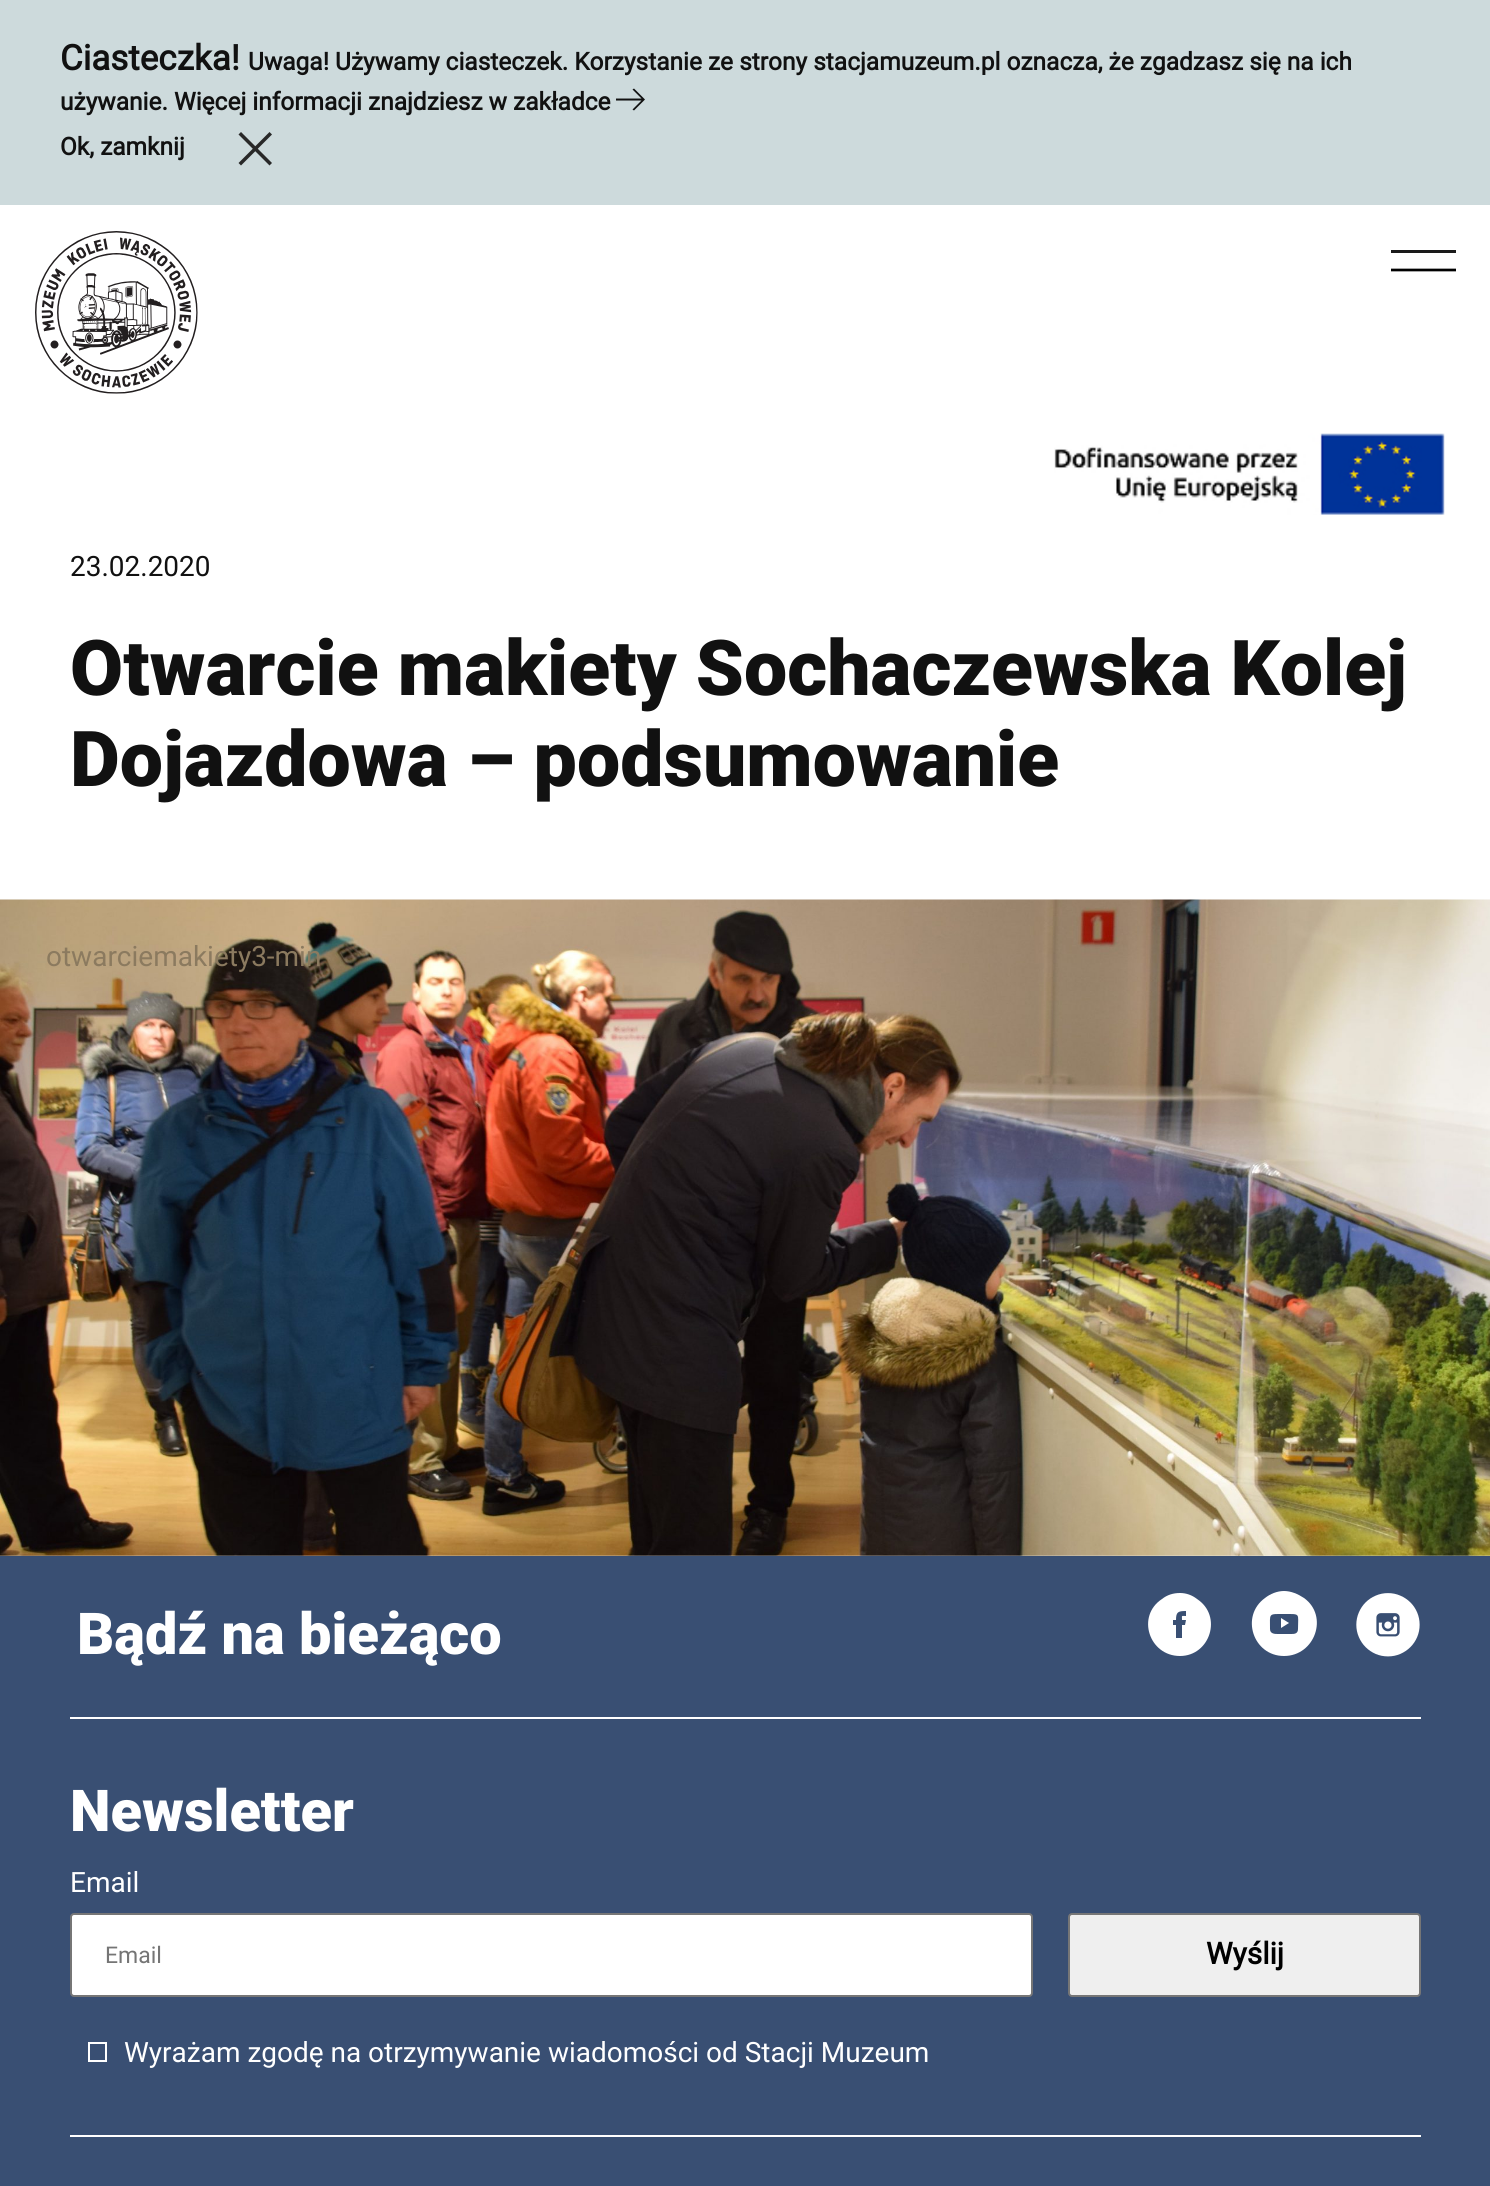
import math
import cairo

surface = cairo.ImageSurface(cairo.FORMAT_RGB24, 1490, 2186)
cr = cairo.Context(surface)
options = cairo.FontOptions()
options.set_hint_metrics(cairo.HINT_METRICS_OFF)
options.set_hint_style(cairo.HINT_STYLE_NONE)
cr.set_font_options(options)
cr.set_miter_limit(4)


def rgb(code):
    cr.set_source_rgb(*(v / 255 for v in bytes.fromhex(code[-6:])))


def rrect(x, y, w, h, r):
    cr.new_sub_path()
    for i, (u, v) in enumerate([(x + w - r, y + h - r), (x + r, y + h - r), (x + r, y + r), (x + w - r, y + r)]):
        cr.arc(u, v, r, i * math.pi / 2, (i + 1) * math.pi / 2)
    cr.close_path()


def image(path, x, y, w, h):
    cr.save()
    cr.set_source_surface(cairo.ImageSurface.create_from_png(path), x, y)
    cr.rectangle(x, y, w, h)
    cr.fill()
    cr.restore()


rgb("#ffffff")
cr.paint()
rgb("#cddadc")
cr.rectangle(0, 0, 1490, 205)
cr.fill()
rgb("#111111")
cr.new_path()
cr.move_to(634, 88.5)
cr.line_to(632.5, 89.5)
cr.line_to(641.5, 98.5)
cr.line_to(616, 98.5)
cr.line_to(616, 100.5)
cr.line_to(641.5, 100.5)
cr.line_to(632.5, 109.5)
cr.line_to(634, 110.5)
cr.line_to(645, 99.5)
cr.close_path()
cr.fill()
rgb("#282828")
cr.new_path()
cr.move_to(238.5, 163)
cr.line_to(269.5, 132)
cr.line_to(272, 134.5)
cr.line_to(241, 165.5)
cr.close_path()
cr.fill()
cr.new_path()
cr.move_to(241, 132)
cr.line_to(272, 163)
cr.line_to(269.5, 165.5)
cr.line_to(238.5, 134.5)
cr.close_path()
cr.fill()
image("img/1.png", 35, 231, 163, 163)
rgb("#1a1a1a")
cr.rectangle(1391, 250, 65, 3)
cr.fill()
cr.new_path()
cr.move_to(1391, 270)
cr.line_to(1456, 270)
rgb("#000000")
cr.set_line_width(2.7)
cr.stroke()
image("img/2.png", 1054, 433, 391, 82)
image("img/3.png", 0, 899, 1490, 657)
rgb("#394f73")
cr.rectangle(0, 1556, 1490, 630)
cr.fill()
rgb("#ffffff")
cr.rectangle(70, 1717, 1351, 2)
cr.fill()
cr.new_path()
cr.move_to(1185, 1625)
cr.line_to(1182, 1625)
cr.line_to(1182, 1638)
cr.line_to(1176, 1638)
cr.line_to(1176, 1625)
cr.line_to(1173, 1625)
cr.line_to(1173, 1620)
cr.line_to(1176, 1620)
cr.curve_to(1176, 1612, 1178, 1611, 1186, 1611)
cr.line_to(1186, 1616)
cr.curve_to(1181, 1616, 1182, 1615, 1182, 1620)
cr.line_to(1186, 1620)
cr.close_path()
cr.move_to(1180, 1593)
cr.curve_to(1173, 1593, 1167, 1595, 1162, 1599)
cr.curve_to(1136, 1616, 1149, 1656, 1180, 1656)
cr.curve_to(1210, 1656, 1223, 1616, 1197, 1599)
cr.curve_to(1192, 1595, 1186, 1593, 1180, 1593)
cr.close_path()
cr.fill()
cr.new_path()
cr.move_to(1281, 1628)
cr.line_to(1289, 1623)
cr.line_to(1281, 1618)
cr.close_path()
cr.move_to(1298, 1629)
cr.curve_to(1298, 1634, 1294, 1634, 1291, 1634)
cr.line_to(1278, 1634)
cr.curve_to(1275, 1634, 1270, 1634, 1270, 1629)
cr.curve_to(1270, 1613, 1268, 1614, 1284, 1614)
cr.curve_to(1301, 1614, 1298, 1613, 1298, 1629)
cr.close_path()
cr.move_to(1284, 1591)
cr.curve_to(1277, 1591, 1270, 1594, 1265, 1598)
cr.curve_to(1240, 1616, 1253, 1656, 1284, 1656)
cr.curve_to(1315, 1656, 1329, 1616, 1304, 1598)
cr.curve_to(1298, 1594, 1291, 1591, 1284, 1591)
cr.close_path()
cr.fill()
image("img/4.png", 1356, 1593, 64, 64)
cr.rectangle(70, 2135, 1351, 2)
cr.fill()
rrect(71, 1914, 961, 82, 3)
cr.fill_preserve()
rgb("#767676")
cr.set_line_width(2)
cr.stroke()
rgb("#efefef")
rrect(1069, 1914, 351, 82, 3)
cr.fill_preserve()
rgb("#767676")
cr.stroke()
cr.rectangle(89, 2043, 17, 18)
rgb("#ffffff")
cr.stroke()
cr.select_font_face("Roboto", cairo.FONT_SLANT_NORMAL, cairo.FONT_WEIGHT_BOLD)
cr.set_font_size(35)
rgb("#111111")
cr.move_to(60, 70)
cr.show_text("Ciasteczka!")
cr.set_font_size(24.5)
for x, y, s in [
    (248, 70, "Uwaga! Używamy ciasteczek. Korzystanie ze strony stacjamuzeum.pl oznacza, że zgadzasz się na ich"),
    (60, 110, "używanie. Więcej informacji znajdziesz w zakładce"),
    (60, 155, "Ok, zamknij"),
]:
    cr.move_to(x, y)
    cr.show_text(s)
cr.select_font_face("Roboto")
cr.set_font_size(28)
cr.move_to(70, 576)
cr.show_text("23.02.2020")
cr.select_font_face("Roboto Black")
cr.set_font_size(77)
cr.move_to(70, 695)
cr.show_text("Otwarcie makiety Sochaczewska Kolej")
cr.move_to(70, 786)
cr.show_text("Dojazdowa – podsumowanie")
cr.select_font_face("Roboto")
cr.set_font_size(28)
rgb("#8b7a5f")
cr.move_to(46, 966)
cr.show_text("otwarciemakiety3-min")
cr.select_font_face("Roboto Black")
cr.set_font_size(57.75)
rgb("#ffffff")
cr.move_to(77, 1654)
cr.show_text("Bądź na bieżąco")
cr.move_to(70, 1831)
cr.show_text("Newsletter")
cr.select_font_face("Roboto")
cr.set_font_size(28)
cr.move_to(70, 1892)
cr.show_text("Email")
cr.set_font_size(23)
rgb("#757575")
cr.move_to(105, 1963)
cr.show_text("Email")
cr.select_font_face("Roboto", cairo.FONT_SLANT_NORMAL, cairo.FONT_WEIGHT_BOLD)
cr.set_font_size(30)
rgb("#000000")
cr.move_to(1206, 1964)
cr.show_text("Wyślij")
cr.select_font_face("Roboto")
cr.set_font_size(28)
rgb("#ffffff")
cr.move_to(124, 2062)
cr.show_text("Wyrażam zgodę na otrzymywanie wiadomości od Stacji Muzeum")
surface.write_to_png("page.png")
